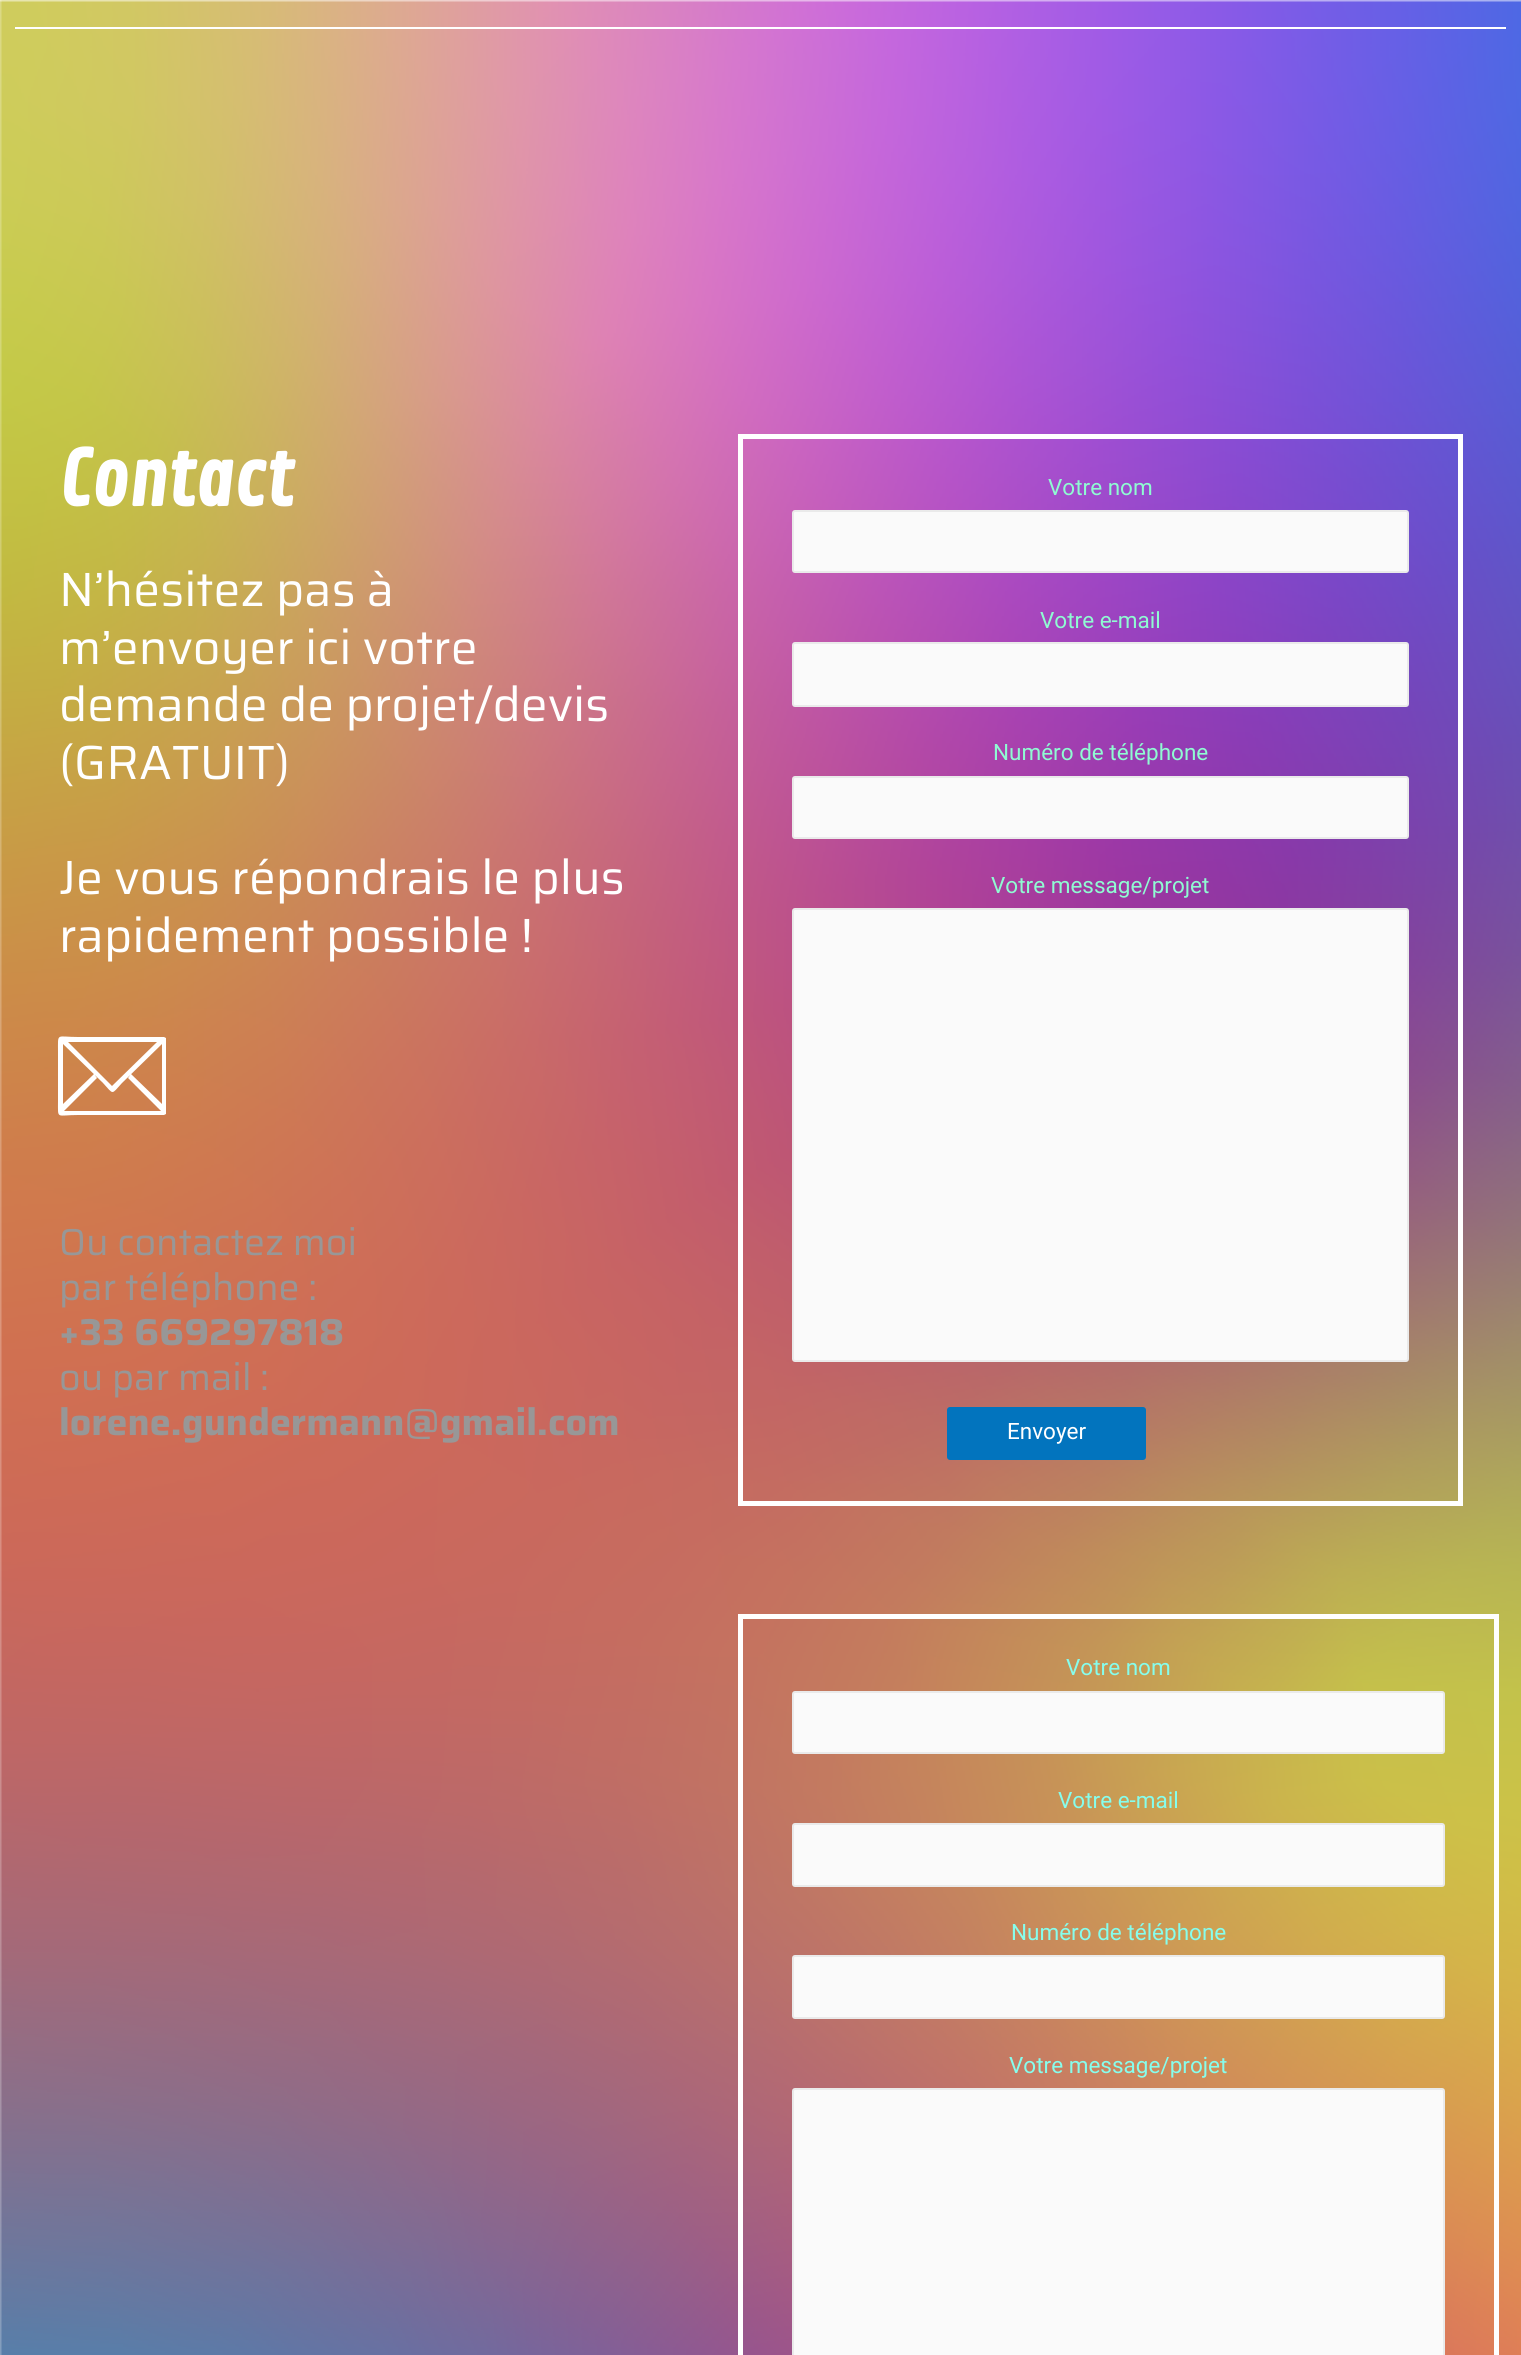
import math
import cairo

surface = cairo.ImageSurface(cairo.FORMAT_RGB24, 1521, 2355)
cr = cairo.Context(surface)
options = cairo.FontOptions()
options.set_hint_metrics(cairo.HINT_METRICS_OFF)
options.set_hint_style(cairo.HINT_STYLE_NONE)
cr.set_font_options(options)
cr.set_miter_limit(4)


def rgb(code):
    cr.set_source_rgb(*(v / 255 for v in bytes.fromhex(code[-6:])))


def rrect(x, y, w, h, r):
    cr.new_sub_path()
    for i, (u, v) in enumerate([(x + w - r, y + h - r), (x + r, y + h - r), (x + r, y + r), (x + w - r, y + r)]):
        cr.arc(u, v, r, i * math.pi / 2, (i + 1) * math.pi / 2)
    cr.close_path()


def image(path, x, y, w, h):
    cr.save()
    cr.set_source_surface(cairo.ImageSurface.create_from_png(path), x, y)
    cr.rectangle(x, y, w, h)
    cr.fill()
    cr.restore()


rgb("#ffffff")
cr.paint()
image("img/1.png", 0, 0, 1521, 2355)
rgb("#ffffff")
cr.rectangle(15, 27, 1491, 2)
cr.fill()
cr.new_path()
cr.move_to(164, 1037)
cr.line_to(78, 1037)
cr.curve_to(56, 1037, 58, 1032, 58, 1052)
cr.line_to(58, 1101)
cr.curve_to(58, 1120, 56, 1115, 78, 1115)
cr.line_to(164, 1115)
cr.line_to(166, 1114)
cr.line_to(166, 1038)
cr.close_path()
cr.move_to(162, 1104)
cr.line_to(131, 1074)
cr.line_to(128, 1078)
cr.line_to(161, 1111)
cr.line_to(64, 1111)
cr.line_to(97, 1078)
cr.line_to(94, 1074)
cr.line_to(63, 1104)
cr.line_to(63, 1042)
cr.line_to(162, 1042)
cr.close_path()
cr.move_to(157, 1042)
cr.line_to(112, 1086)
cr.line_to(68, 1042)
cr.line_to(63, 1042)
cr.line_to(63, 1044)
cr.line_to(103, 1083)
cr.curve_to(114, 1095, 111, 1095, 122, 1083)
cr.line_to(162, 1044)
cr.line_to(162, 1042)
cr.close_path()
cr.fill()
cr.rectangle(740.5, 436.5, 720, 1067)
cr.set_line_width(5)
cr.stroke()
rgb("#fafafa")
rrect(793, 511, 615, 61, 2)
cr.fill_preserve()
rgb("#eaeaea")
cr.set_line_width(2)
cr.stroke()
rgb("#fafafa")
rrect(793, 643, 615, 63, 2)
cr.fill_preserve()
rgb("#eaeaea")
cr.stroke()
rgb("#fafafa")
rrect(793, 777, 615, 61, 2)
cr.fill_preserve()
rgb("#eaeaea")
cr.stroke()
rgb("#fafafa")
rrect(793, 909, 615, 452, 2)
cr.fill_preserve()
rgb("#eaeaea")
cr.stroke()
rgb("#0274be")
rrect(947, 1407, 199, 53, 3)
cr.fill()
cr.rectangle(740.5, 1616.5, 756, 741)
rgb("#ffffff")
cr.set_line_width(5)
cr.stroke()
rgb("#fafafa")
rrect(793, 1692, 651, 61, 2)
cr.fill_preserve()
rgb("#eaeaea")
cr.set_line_width(2)
cr.stroke()
rgb("#fafafa")
rrect(793, 1824, 651, 62, 2)
cr.fill_preserve()
rgb("#eaeaea")
cr.stroke()
rgb("#fafafa")
rrect(793, 1956, 651, 62, 2)
cr.fill_preserve()
rgb("#eaeaea")
cr.stroke()
rgb("#fafafa")
rrect(793, 2089, 651, 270, 2)
cr.fill_preserve()
rgb("#eaeaea")
cr.stroke()
cr.select_font_face("Contrail One", cairo.FONT_SLANT_NORMAL, cairo.FONT_WEIGHT_BOLD)
cr.set_font_size(75)
rgb("#ffffff")
cr.move_to(59, 506)
cr.show_text("Contact")
cr.select_font_face("Saira")
cr.set_font_size(48)
for x, y, s in [
    (59, 606, "N’hésitez pas à"),
    (59, 664, "m’envoyer ici votre"),
    (59, 721, "demande de projet/devis"),
    (59, 779, "(GRATUIT)"),
    (59, 894, "Je vous répondrais le plus"),
    (59, 952, "rapidement possible !"),
]:
    cr.move_to(x, y)
    cr.show_text(s)
cr.set_font_size(37.5)
rgb("#989797")
cr.move_to(59, 1255)
cr.show_text("Ou contactez moi")
cr.move_to(59, 1300)
cr.show_text("par téléphone :")
cr.select_font_face("Saira", cairo.FONT_SLANT_NORMAL, cairo.FONT_WEIGHT_BOLD)
cr.move_to(59, 1345)
cr.show_text("+33 669297818")
cr.select_font_face("Saira")
cr.move_to(59, 1390)
cr.show_text("ou par mail :")
cr.select_font_face("Saira", cairo.FONT_SLANT_NORMAL, cairo.FONT_WEIGHT_BOLD)
cr.move_to(59, 1435)
cr.show_text("lorene.gundermann@gmail.com")
cr.select_font_face("Roboto")
cr.set_font_size(22.5)
rgb("#8ffbd2")
for x, y, s in [
    (1048, 495, "Votre nom"),
    (1040, 628, "Votre e-mail"),
    (993, 760, "Numéro de téléphone"),
    (991, 893, "Votre message/projet"),
]:
    cr.move_to(x, y)
    cr.show_text(s)
rgb("#ffffff")
cr.move_to(1007, 1439)
cr.show_text("Envoyer")
rgb("#86fdec")
for x, y, s in [
    (1066, 1675, "Votre nom"),
    (1058, 1808, "Votre e-mail"),
    (1011, 1940, "Numéro de téléphone"),
    (1009, 2073, "Votre message/projet"),
]:
    cr.move_to(x, y)
    cr.show_text(s)
surface.write_to_png("page.png")
